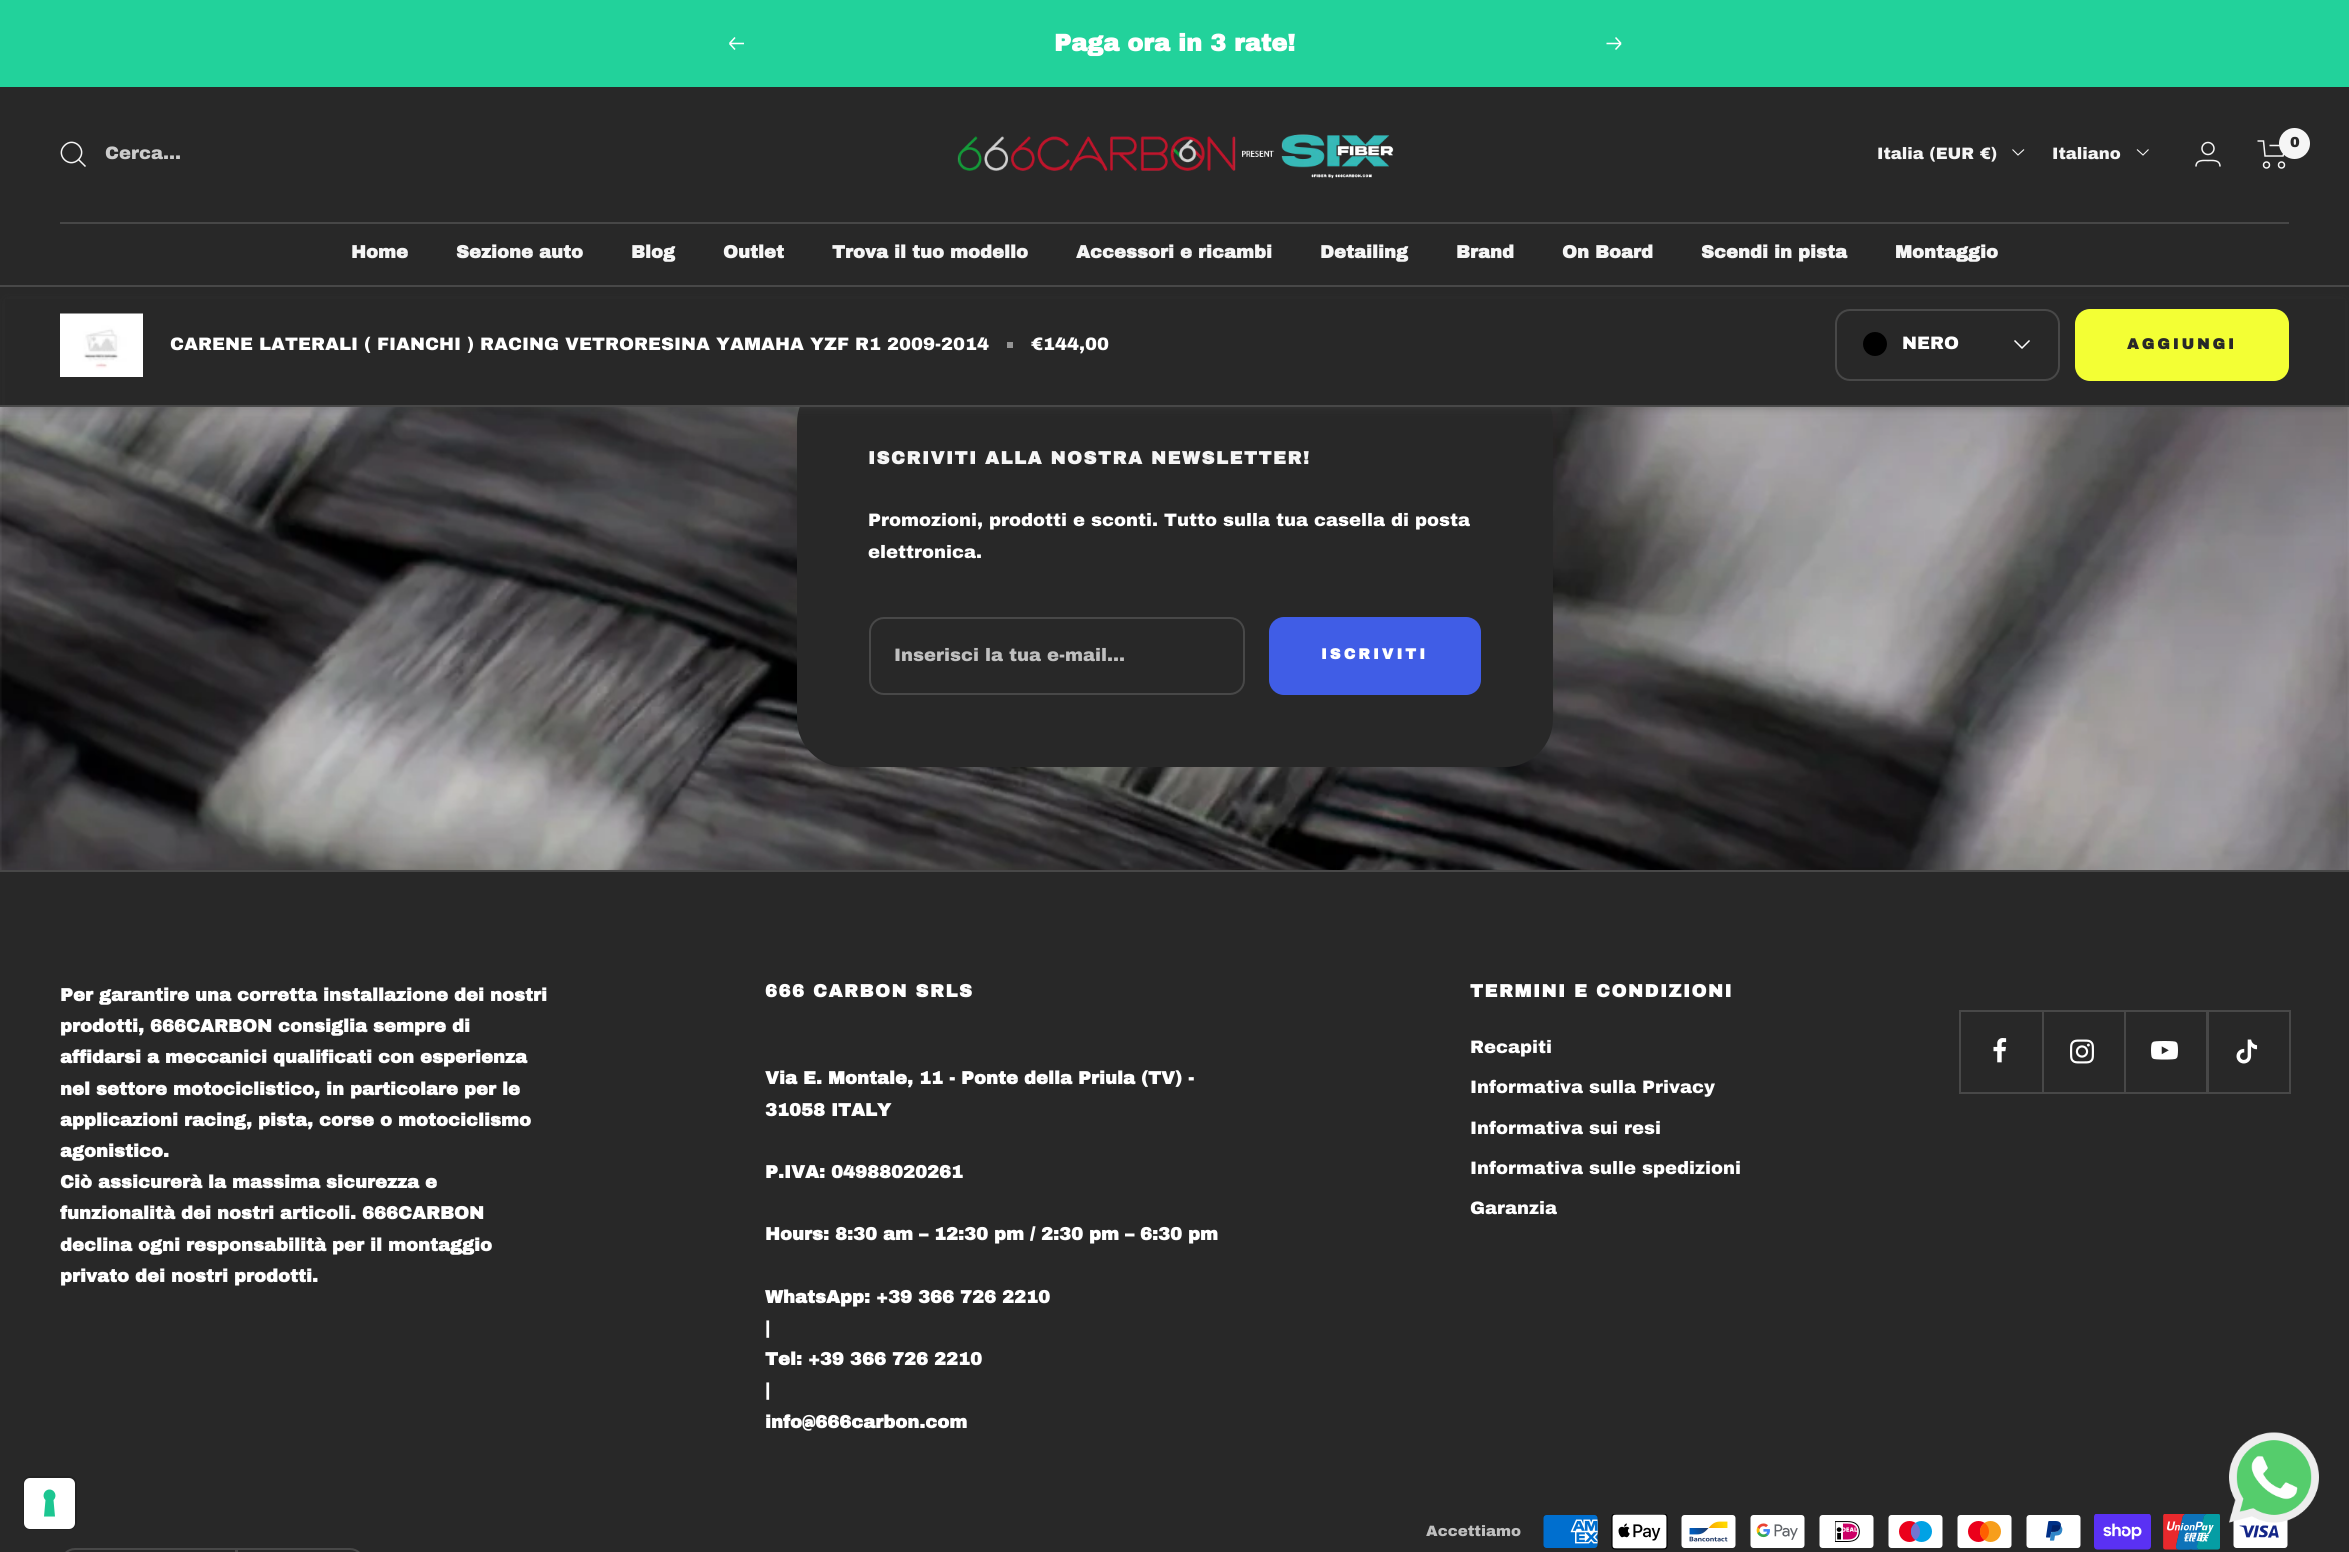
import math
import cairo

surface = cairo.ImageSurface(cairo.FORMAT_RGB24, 2349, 1552)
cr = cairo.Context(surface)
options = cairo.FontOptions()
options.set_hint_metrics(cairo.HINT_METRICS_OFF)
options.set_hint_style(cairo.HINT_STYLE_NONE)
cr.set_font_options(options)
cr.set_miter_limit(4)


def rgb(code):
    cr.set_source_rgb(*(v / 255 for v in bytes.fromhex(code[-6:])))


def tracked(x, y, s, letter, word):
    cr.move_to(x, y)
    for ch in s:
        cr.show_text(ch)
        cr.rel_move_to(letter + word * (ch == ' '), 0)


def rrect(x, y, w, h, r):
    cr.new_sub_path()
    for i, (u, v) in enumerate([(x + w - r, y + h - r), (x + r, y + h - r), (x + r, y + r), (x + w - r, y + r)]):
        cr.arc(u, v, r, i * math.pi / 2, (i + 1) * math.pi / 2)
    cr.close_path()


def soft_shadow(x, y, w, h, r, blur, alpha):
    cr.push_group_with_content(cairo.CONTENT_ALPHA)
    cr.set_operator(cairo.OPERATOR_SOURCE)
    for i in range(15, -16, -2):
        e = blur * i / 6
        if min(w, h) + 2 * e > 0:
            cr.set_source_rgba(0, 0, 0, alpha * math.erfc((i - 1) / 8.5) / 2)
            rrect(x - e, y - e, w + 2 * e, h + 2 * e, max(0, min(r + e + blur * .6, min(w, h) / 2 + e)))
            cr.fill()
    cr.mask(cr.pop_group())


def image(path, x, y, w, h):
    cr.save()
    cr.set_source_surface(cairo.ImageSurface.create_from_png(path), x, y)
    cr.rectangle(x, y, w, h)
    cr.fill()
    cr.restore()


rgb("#282828")
cr.paint()
rgb("#22d29b")
cr.rectangle(0, 0, 2349, 87)
cr.fill()
cr.new_path()
cr.move_to(744, 43.5)
cr.line_to(729.5, 43.5)
cr.move_to(729.5, 43.5)
cr.line_to(735, 49.5)
cr.move_to(729.5, 43.5)
cr.line_to(735, 37.5)
rgb("#ffffff")
cr.set_line_width(1.5)
cr.stroke()
cr.new_path()
cr.move_to(1606.5, 43.5)
cr.line_to(1621, 43.5)
cr.move_to(1621, 43.5)
cr.line_to(1615.5, 49.5)
cr.move_to(1621, 43.5)
cr.line_to(1615.5, 37.5)
cr.stroke()
cr.new_path()
cr.move_to(78.5, 159.5)
cr.curve_to(88, 150, 74, 136, 64.5, 145.5)
cr.curve_to(55, 155, 69, 169, 78.5, 159.5)
cr.close_path()
cr.move_to(78.5, 159.5)
cr.line_to(85.5, 166.5)
rgb("#f5f5f5")
cr.stroke()
image("img/1.png", 957, 134, 437, 45)
cr.arc(2208, 148.5, 6, 0, 2 * math.pi)
cr.stroke()
cr.new_path()
cr.move_to(2196, 166.5)
cr.curve_to(2196, 159.5, 2203.5, 160.5, 2208, 160.5)
cr.curve_to(2212.5, 160.5, 2220, 159.5, 2220, 166.5)
cr.stroke()
cr.new_path()
cr.move_to(2257.5, 141)
cr.line_to(2263.5, 141)
cr.line_to(2265, 156)
cr.line_to(2283, 156)
cr.line_to(2286, 145.5)
cr.line_to(2269.5, 145.5)
cr.stroke()
cr.arc(2266.5, 165, 3, 0, 2 * math.pi)
cr.stroke()
cr.arc(2281.5, 165, 3, 0, 2 * math.pi)
cr.stroke()
cr.arc(2294.5, 143.5, 15.5, 0, 2 * math.pi)
cr.fill()
cr.new_path()
cr.move_to(2012.5, 149.5)
cr.line_to(2018, 155)
cr.line_to(2024, 149.5)
cr.set_line_width(1.1)
cr.stroke()
cr.new_path()
cr.move_to(2137, 149.5)
cr.line_to(2143, 155)
cr.line_to(2148.5, 149.5)
cr.stroke()
rgb("#474747")
cr.rectangle(60, 222, 2229, 2)
cr.fill()
image("img/3.png", 0, 407, 2349, 463)
rgb("#282828")
rrect(797, 375, 756, 392, 48)
cr.fill()
rgb("#484848")
soft_shadow(8, 302, 2334, 106, 0, 4, 0.4)
for x, y, w, h, color in [
    (5, 299, 2340, 106, "#282828"),
    (0, 285, 2349, 2, "#484848"),
    (0, 405, 2349, 2, "#484848"),
]:
    rgb(color)
    cr.rectangle(x, y, w, h)
    cr.fill()
image("img/2.png", 60, 313, 83, 64)
rgb("#949494")
cr.rectangle(1007, 342, 6, 6)
cr.fill()
rrect(1836, 310, 223, 70, 14)
rgb("#484848")
cr.set_line_width(2)
cr.stroke()
rgb("#000000")
cr.arc(1875, 344, 12, 0, 2 * math.pi)
cr.fill()
cr.new_path()
cr.move_to(2014.5, 340.5)
cr.line_to(2022, 348)
cr.line_to(2029.5, 340.5)
rgb("#ffffff")
cr.set_line_width(1.5)
cr.stroke()
rgb("#f3ff34")
rrect(2075, 309, 214, 72, 15)
cr.fill()
rrect(870, 618, 374, 76, 14)
rgb("#484848")
cr.set_line_width(2)
cr.stroke()
rgb("#405de6")
rrect(1269, 617, 212, 78, 15)
cr.fill()
rrect(24, 1477, 52, 52, 7)
rgb("#222222")
cr.stroke()
rgb("#ffffff")
rrect(24, 1478, 51, 51, 6)
cr.fill()
rgb("#1cc691")
cr.set_fill_rule(cairo.FILL_RULE_EVEN_ODD)
cr.new_path()
cr.move_to(49.5, 1489.5)
cr.curve_to(55, 1489.5, 57.5, 1496.5, 53.5, 1500)
cr.line_to(55, 1516.5)
cr.line_to(44, 1516.5)
cr.line_to(45.5, 1500)
cr.curve_to(41.5, 1496.5, 44, 1489.5, 49.5, 1489.5)
cr.close_path()
cr.fill()
rgb("#484848")
cr.rectangle(0, 870, 2349, 2)
cr.fill()
cr.set_fill_rule(cairo.FILL_RULE_WINDING)
cr.new_path()
cr.move_to(1961, 1092)
cr.line_to(1961, 1094)
cr.line_to(2043, 1094)
cr.line_to(2043, 1011)
cr.line_to(2042, 1011)
cr.line_to(2042, 1092)
cr.close_path()
cr.fill()
cr.new_path()
cr.move_to(1959, 1092)
cr.line_to(1959, 1094)
cr.line_to(2042, 1094)
cr.line_to(2042, 1011)
cr.line_to(2042, 1092)
cr.close_path()
cr.fill()
cr.rectangle(1959, 1010, 83, 2)
cr.fill()
cr.rectangle(1959, 1010, 2, 82)
cr.fill()
image("img/4.png", 1993, 1038, 14, 25)
cr.new_path()
cr.move_to(2043, 1092)
cr.line_to(2043, 1094)
cr.line_to(2126, 1094)
cr.line_to(2126, 1011)
cr.line_to(2124, 1011)
cr.line_to(2124, 1092)
cr.close_path()
cr.fill()
for x, y, w, h, color in [
    (2124, 1010, 2, 1, "#484848"),
    (2042, 1010, 82, 2, "#484848"),
    (2043, 1010, 1, 82, "#484848"),
]:
    rgb(color)
    cr.rectangle(x, y, w, h)
    cr.fill()
image("img/5.png", 2070, 1039, 24, 25)
cr.new_path()
cr.move_to(2126, 1092)
cr.line_to(2126, 1094)
cr.line_to(2208, 1094)
cr.line_to(2208, 1011)
cr.line_to(2206, 1011)
cr.line_to(2206, 1092)
cr.close_path()
cr.fill()
cr.rectangle(2206, 1010, 1, 1)
cr.fill()
cr.rectangle(2124, 1010, 83, 2)
cr.fill()
image("img/6.png", 2151, 1041, 27, 19)
cr.new_path()
cr.move_to(2208, 1092)
cr.line_to(2208, 1094)
cr.line_to(2291, 1094)
cr.line_to(2291, 1011)
cr.line_to(2289, 1011)
cr.line_to(2289, 1092)
cr.close_path()
cr.fill()
for x, y, w, h, color in [
    (2289, 1010, 2, 1, "#484848"),
    (2207, 1010, 82, 2, "#484848"),
    (2208, 1010, 1, 82, "#484848"),
]:
    rgb(color)
    cr.rectangle(x, y, w, h)
    cr.fill()
image("img/7.png", 2236, 1039, 22, 25)
image("img/8.png", 1543, 1515, 55, 33)
image("img/9.png", 1611, 1514, 57, 36)
image("img/10.png", 1681, 1515, 55, 33)
image("img/11.png", 1750, 1515, 55, 33)
image("img/12.png", 1819, 1515, 55, 33)
image("img/13.png", 1888, 1515, 55, 33)
image("img/14.png", 1957, 1515, 55, 33)
image("img/15.png", 2026, 1515, 55, 33)
image("img/16.png", 2094, 1514, 57, 36)
image("img/17.png", 2163, 1514, 57, 36)
image("img/18.png", 2233, 1516, 55, 32)
cr.new_path()
cr.move_to(75, 1549)
cr.line_to(236, 1549)
cr.line_to(236, 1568)
cr.line_to(75, 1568)
cr.curve_to(67.5, 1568, 61, 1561.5, 61, 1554)
cr.line_to(61, 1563)
cr.curve_to(61, 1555.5, 67.5, 1549, 75, 1549)
cr.close_path()
cr.stroke()
cr.new_path()
cr.move_to(237, 1549)
cr.line_to(350, 1549)
cr.curve_to(357.5, 1549, 364, 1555.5, 364, 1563)
cr.line_to(364, 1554)
cr.curve_to(364, 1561.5, 357.5, 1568, 350, 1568)
cr.line_to(237, 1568)
cr.close_path()
cr.stroke()
image("img/19.png", 2229, 1432, 90, 91)
cr.select_font_face("Archivo Black", cairo.FONT_SLANT_NORMAL, cairo.FONT_WEIGHT_BOLD)
cr.set_font_size(24)
rgb("#ffffff")
cr.move_to(1054, 51)
cr.show_text("Paga ora in 3 rate!")
cr.select_font_face("Archivo Black")
cr.set_font_size(18)
rgb("#cccccc")
cr.move_to(105, 159)
cr.show_text("Cerca...")
cr.select_font_face("Archivo Black", cairo.FONT_SLANT_NORMAL, cairo.FONT_WEIGHT_BOLD)
cr.set_font_size(14)
rgb("#282828")
cr.move_to(2290, 147)
cr.show_text("0")
cr.select_font_face("Archivo Black")
cr.set_font_size(16.5)
rgb("#f5f5f5")
cr.move_to(1877, 159)
cr.show_text("Italia (EUR €)")
cr.move_to(2052, 159)
cr.show_text("Italiano")
cr.select_font_face("Archivo Black", cairo.FONT_SLANT_NORMAL, cairo.FONT_WEIGHT_BOLD)
cr.set_font_size(18)
for x, y, s in [
    (351, 258, "Home"),
    (456, 258, "Sezione auto"),
    (631, 258, "Blog"),
    (723, 258, "Outlet"),
    (832, 258, "Trova il tuo modello"),
    (1076, 258, "Accessori e ricambi"),
    (1320, 258, "Detailing"),
    (1456, 258, "Brand"),
    (1562, 258, "On Board"),
    (1701, 258, "Scendi in pista"),
    (1895, 258, "Montaggio"),
]:
    cr.move_to(x, y)
    cr.show_text(s)
cr.select_font_face("Archivo Black")
rgb("#ffffff")
for x, y, s in [
    (170, 350, "CARENE LATERALI ( FIANCHI ) RACING VETRORESINA YAMAHA YZF R1 2009-2014"),
    (1031, 350, "€144,00"),
    (1902, 349, "NERO"),
]:
    cr.move_to(x, y)
    cr.show_text(s)
cr.select_font_face("Archivo Black", cairo.FONT_SLANT_NORMAL, cairo.FONT_WEIGHT_BOLD)
cr.set_font_size(15)
rgb("#282828")
tracked(2127, 349, "AGGIUNGI", 3, 0)
cr.set_font_size(18)
rgb("#f5f5f5")
tracked(868, 464, "ISCRIVITI ALLA NOSTRA NEWSLETTER!", 1.5, 0)
cr.select_font_face("Archivo Black")
rgb("#ffffff")
cr.move_to(868, 526)
cr.show_text("Promozioni, prodotti e sconti. Tutto sulla tua casella di posta")
cr.move_to(868, 558)
cr.show_text("elettronica.")
rgb("#bfbfbf")
cr.move_to(894, 661)
cr.show_text("Inserisci la tua e-mail...")
cr.select_font_face("Archivo Black", cairo.FONT_SLANT_NORMAL, cairo.FONT_WEIGHT_BOLD)
cr.set_font_size(15)
rgb("#ffffff")
tracked(1321, 659, "ISCRIVITI", 3, 0)
cr.set_font_size(18)
for x, y, s in [
    (60, 1001, "Per garantire una corretta installazione dei nostri"),
    (60, 1032, "prodotti, 666CARBON consiglia sempre di"),
    (60, 1063, "affidarsi a meccanici qualificati con esperienza"),
    (60, 1095, "nel settore motociclistico, in particolare per le"),
    (60, 1126, "applicazioni racing, pista, corse o motociclismo"),
    (60, 1157, "agonistico."),
    (60, 1188, "Ciò assicurerà la massima sicurezza e"),
    (60, 1219, "funzionalità dei nostri articoli. 666CARBON"),
    (60, 1251, "declina ogni responsabilità per il montaggio"),
    (60, 1282, "privato dei nostri prodotti."),
]:
    cr.move_to(x, y)
    cr.show_text(s)
tracked(765, 997, "666 CARBON SRLS", 1.5, 0)
for x, y, s in [
    (765, 1084, "Via E. Montale, 11 - Ponte della Priula (TV) -"),
    (765, 1116, "31058 ITALY"),
    (765, 1178, "P.IVA: 04988020261"),
    (765, 1240, "Hours: 8:30 am – 12:30 pm / 2:30 pm – 6:30 pm"),
    (765, 1303, "WhatsApp: +39 366 726 2210"),
    (765, 1334, "|"),
    (765, 1365, "Tel: +39 366 726 2210"),
    (765, 1396, "|"),
    (765, 1428, "info@666carbon.com"),
]:
    cr.move_to(x, y)
    cr.show_text(s)
tracked(1470, 997, "TERMINI E CONDIZIONI", 1.5, 0)
cr.select_font_face("Archivo Black")
for x, y, s in [
    (1470, 1053, "Recapiti"),
    (1470, 1093, "Informativa sulla Privacy"),
    (1470, 1134, "Informativa sui resi"),
    (1470, 1174, "Informativa sulle spedizioni"),
    (1470, 1214, "Garanzia"),
]:
    cr.move_to(x, y)
    cr.show_text(s)
cr.set_font_size(15)
rgb("#bfbfbf")
cr.move_to(1426, 1536)
cr.show_text("Accettiamo")
surface.write_to_png("page.png")
